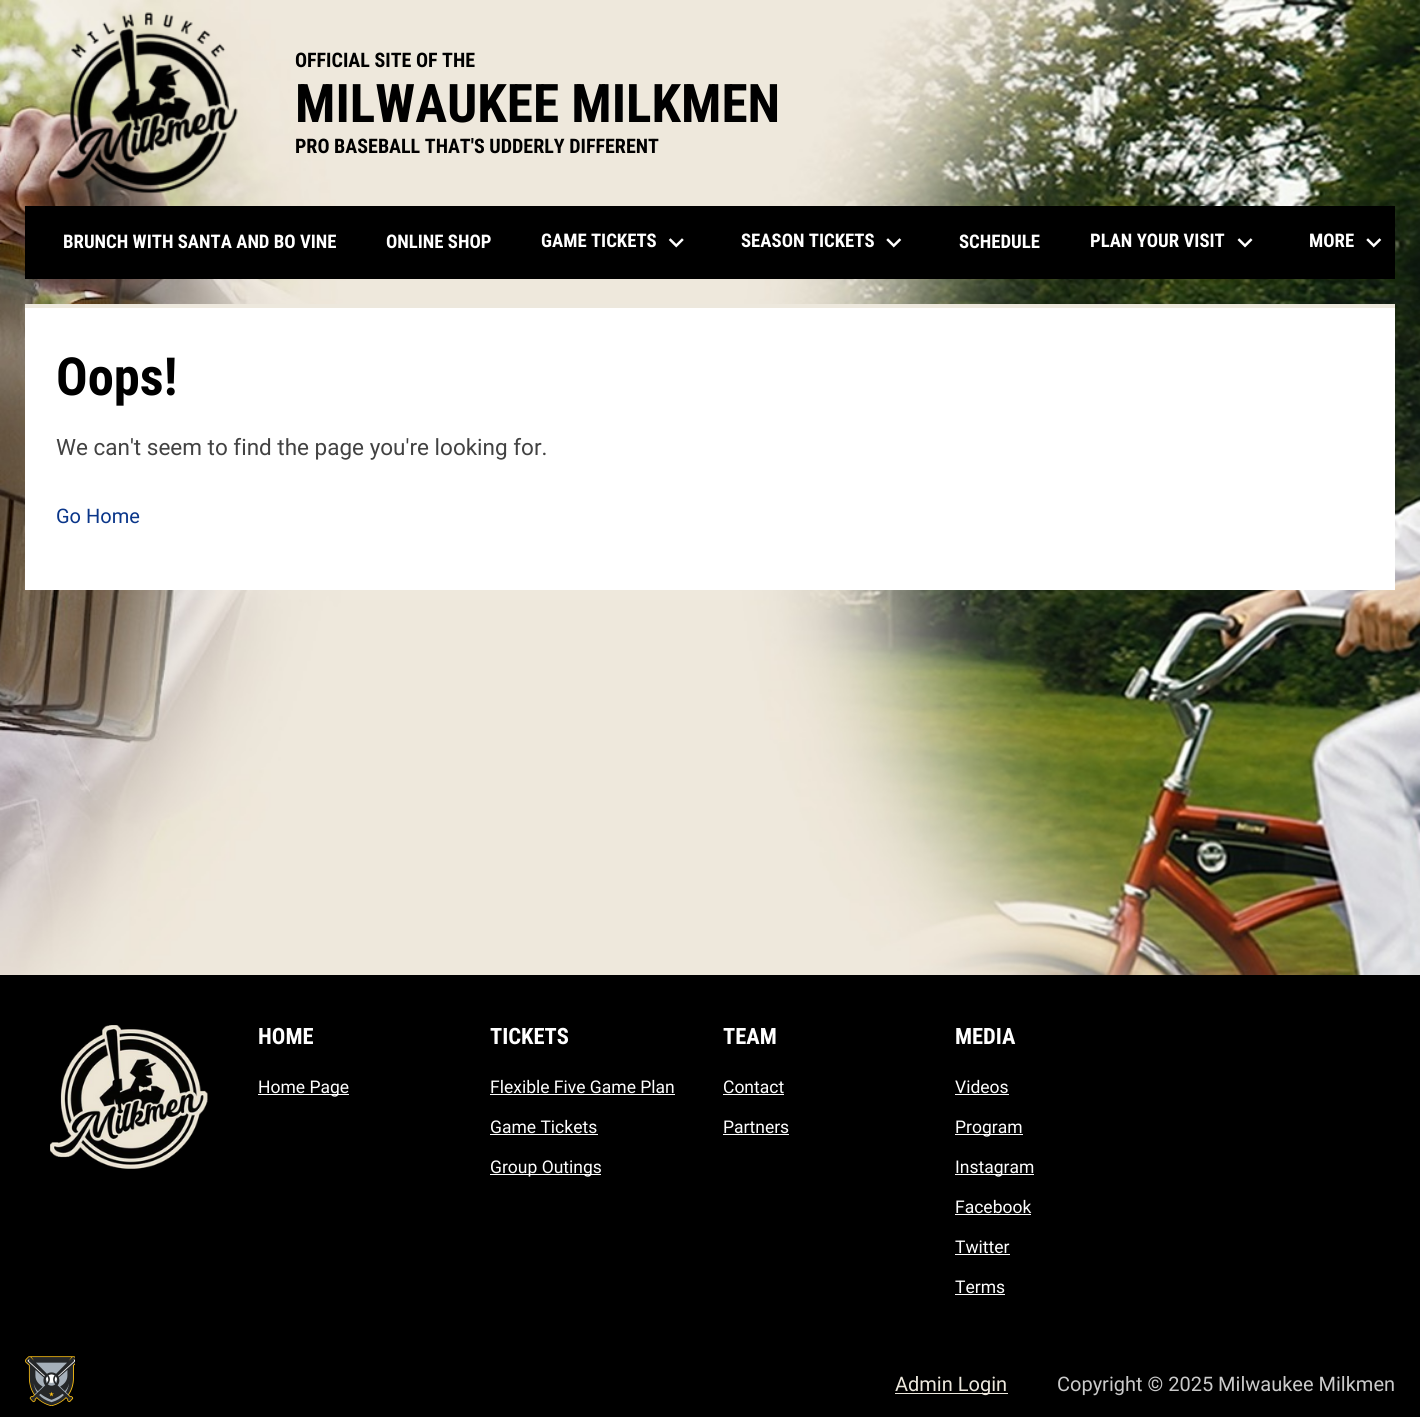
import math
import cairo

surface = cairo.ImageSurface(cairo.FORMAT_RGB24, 1420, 1417)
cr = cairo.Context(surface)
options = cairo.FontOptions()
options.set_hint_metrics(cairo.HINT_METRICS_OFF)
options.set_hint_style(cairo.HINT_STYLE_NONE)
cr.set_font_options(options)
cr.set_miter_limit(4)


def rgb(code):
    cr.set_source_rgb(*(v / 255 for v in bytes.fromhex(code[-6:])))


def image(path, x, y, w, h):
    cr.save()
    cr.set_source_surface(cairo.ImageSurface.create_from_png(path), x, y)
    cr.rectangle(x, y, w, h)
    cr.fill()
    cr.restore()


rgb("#ffffff")
cr.paint()
image("img/1.png", 0, 0, 1420, 975)
image("img/2.png", 56, 12, 182, 182)
rgb("#000000")
cr.rectangle(25, 206, 1370, 73)
cr.fill()
image("img/3.png", 668, 238, 16, 10)
image("img/4.png", 886, 238, 16, 10)
image("img/5.png", 1237, 238, 16, 10)
image("img/4.png", 1366, 238, 16, 10)
for x, y, w, h, color in [
    (25, 308, 1370, 282, "#ffffff"),
    (25, 304, 1370, 4, "#ede8dd"),
    (0, 975, 1420, 442, "#000000"),
]:
    rgb(color)
    cr.rectangle(x, y, w, h)
    cr.fill()
image("img/6.png", 50, 1025, 158, 144)
for x, y, w, h, color in [
    (258, 1094, 91, 1, "#ffffff"),
    (490, 1094, 185, 1, "#ffffff"),
    (490, 1134, 108, 1, "#ffffff"),
    (490, 1174, 111, 1, "#ffffff"),
    (723, 1094, 61, 1, "#ffffff"),
    (723, 1134, 66, 1, "#ffffff"),
    (955, 1094, 54, 1, "#ffffff"),
    (955, 1134, 68, 1, "#ffffff"),
    (955, 1174, 79, 1, "#ffffff"),
    (955, 1214, 76, 1, "#ffffff"),
    (955, 1254, 55, 1, "#ffffff"),
    (955, 1294, 50, 1, "#ffffff"),
]:
    rgb(color)
    cr.rectangle(x, y, w, h)
    cr.fill()
image("img/7.png", 25, 1356, 50, 50)
rgb("#ede8dd")
cr.rectangle(895, 1393, 113, 1)
cr.fill()
cr.select_font_face("Roboto Condensed", cairo.FONT_SLANT_NORMAL, cairo.FONT_WEIGHT_BOLD)
cr.set_font_size(20)
rgb("#000000")
cr.move_to(295, 67)
cr.show_text("OFFICIAL SITE OF THE")
cr.set_font_size(53.25)
cr.move_to(295, 122)
cr.show_text("MILWAUKEE MILKMEN")
cr.set_font_size(20)
cr.move_to(295, 153)
cr.show_text("PRO BASEBALL THAT'S UDDERLY DIFFERENT")
cr.set_font_size(18.75)
rgb("#ffffff")
for x, y, s in [
    (63, 248, "BRUNCH WITH SANTA AND BO VINE"),
    (386, 248, "ONLINE SHOP"),
    (541, 247, "GAME TICKETS"),
    (741, 247, "SEASON TICKETS"),
    (959, 248, "SCHEDULE"),
    (1090, 247, "PLAN YOUR VISIT"),
    (1309, 247, "MORE"),
]:
    cr.move_to(x, y)
    cr.show_text(s)
cr.set_font_size(52.5)
rgb("#000000")
cr.move_to(56, 395)
cr.show_text("Oops!")
cr.select_font_face("Roboto")
cr.set_font_size(22.5)
rgb("#424242")
cr.move_to(56, 455)
cr.show_text("We can't seem to find the page you're looking for.")
cr.set_font_size(20)
rgb("#093589")
cr.move_to(56, 523)
cr.show_text("Go Home")
cr.select_font_face("Roboto Condensed", cairo.FONT_SLANT_NORMAL, cairo.FONT_WEIGHT_BOLD)
cr.set_font_size(22.5)
rgb("#ffffff")
cr.move_to(258, 1044)
cr.show_text("HOME")
cr.select_font_face("Roboto")
cr.set_font_size(17.5)
cr.move_to(258, 1093)
cr.show_text("Home Page")
cr.select_font_face("Roboto Condensed", cairo.FONT_SLANT_NORMAL, cairo.FONT_WEIGHT_BOLD)
cr.set_font_size(22.5)
cr.move_to(490, 1044)
cr.show_text("TICKETS")
cr.select_font_face("Roboto")
cr.set_font_size(17.5)
for x, y, s in [
    (490, 1093, "Flexible Five Game Plan"),
    (490, 1133, "Game Tickets"),
    (490, 1173, "Group Outings"),
]:
    cr.move_to(x, y)
    cr.show_text(s)
cr.select_font_face("Roboto Condensed", cairo.FONT_SLANT_NORMAL, cairo.FONT_WEIGHT_BOLD)
cr.set_font_size(22.5)
cr.move_to(723, 1044)
cr.show_text("TEAM")
cr.select_font_face("Roboto")
cr.set_font_size(17.5)
cr.move_to(723, 1093)
cr.show_text("Contact")
cr.move_to(723, 1133)
cr.show_text("Partners")
cr.select_font_face("Roboto Condensed", cairo.FONT_SLANT_NORMAL, cairo.FONT_WEIGHT_BOLD)
cr.set_font_size(22.5)
cr.move_to(955, 1044)
cr.show_text("MEDIA")
cr.select_font_face("Roboto")
cr.set_font_size(17.5)
for x, y, s in [
    (955, 1093, "Videos"),
    (955, 1133, "Program"),
    (955, 1173, "Instagram"),
    (955, 1213, "Facebook"),
    (955, 1253, "Twitter"),
    (955, 1293, "Terms"),
]:
    cr.move_to(x, y)
    cr.show_text(s)
cr.set_font_size(20)
rgb("#ede8dd")
cr.move_to(895, 1391)
cr.show_text("Admin Login")
rgb("#cacaca")
cr.move_to(1057, 1391)
cr.show_text("Copyright © 2025 Milwaukee Milkmen")
surface.write_to_png("page.png")
